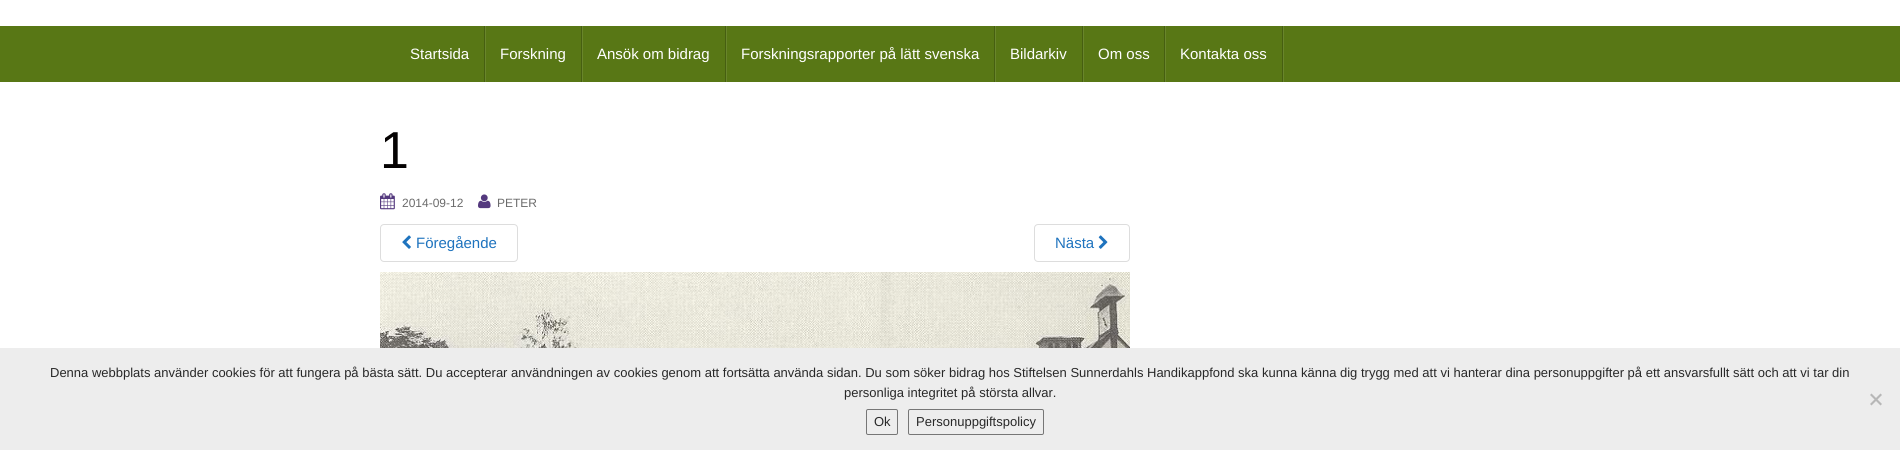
import math
import cairo

surface = cairo.ImageSurface(cairo.FORMAT_RGB24, 1900, 450)
cr = cairo.Context(surface)
options = cairo.FontOptions()
options.set_hint_metrics(cairo.HINT_METRICS_OFF)
options.set_hint_style(cairo.HINT_STYLE_NONE)
cr.set_font_options(options)
cr.set_miter_limit(4)


def rgb(code):
    cr.set_source_rgb(*(v / 255 for v in bytes.fromhex(code[-6:])))


def rrect(x, y, w, h, r):
    cr.new_sub_path()
    for i, (u, v) in enumerate([(x + w - r, y + h - r), (x + r, y + h - r), (x + r, y + r), (x + w - r, y + r)]):
        cr.arc(u, v, r, i * math.pi / 2, (i + 1) * math.pi / 2)
    cr.close_path()


def image(path, x, y, w, h):
    cr.save()
    cr.set_source_surface(cairo.ImageSurface.create_from_png(path), x, y)
    cr.rectangle(x, y, w, h)
    cr.fill()
    cr.restore()


rgb("#ffffff")
cr.paint()
for x, y, w, h, color in [
    (0, 26, 1900, 56, "#587715"),
    (485, 26, 1, 56, "#69852c"),
    (484, 26, 1, 56, "#465f11"),
    (582, 26, 1, 56, "#69852c"),
    (581, 26, 1, 56, "#465f11"),
    (726, 26, 1, 56, "#69852c"),
    (725, 26, 1, 56, "#465f11"),
    (995, 26, 1, 56, "#69852c"),
    (994, 26, 1, 56, "#465f11"),
    (1083, 26, 1, 56, "#69852c"),
    (1082, 26, 1, 56, "#465f11"),
    (1165, 26, 1, 56, "#69852c"),
    (1164, 26, 1, 56, "#465f11"),
    (1283, 26, 1, 56, "#69852c"),
    (1282, 26, 1, 56, "#465f11"),
]:
    rgb(color)
    cr.rectangle(x, y, w, h)
    cr.fill()
image("img/1.png", 380, 193, 15, 17)
image("img/2.png", 478, 194, 13, 15)
rrect(380.5, 224.5, 137, 37, 3.5)
rgb("#dddddd")
cr.set_line_width(1)
cr.stroke()
image("img/3.png", 402, 235, 9, 14)
rrect(1034.5, 224.5, 95, 37, 3.5)
cr.stroke()
image("img/4.png", 1098, 235, 10, 14)
image("img/5.png", 380, 272, 750, 76)
rgb("#ededed")
cr.rectangle(0, 348, 1900, 102)
cr.fill()
rgb("#b7b7b7")
cr.new_path()
cr.move_to(1880.5, 393.5)
cr.line_to(1882, 395)
cr.line_to(1871.5, 405.5)
cr.line_to(1870, 404)
cr.close_path()
cr.fill()
cr.new_path()
cr.move_to(1870, 395)
cr.line_to(1871.5, 393.5)
cr.line_to(1882, 404)
cr.line_to(1880.5, 405.5)
cr.close_path()
cr.fill()
rrect(866.5, 409.5, 31, 25, 1.5)
rgb("#767676")
cr.stroke()
rrect(908.5, 409.5, 135, 25, 1.5)
cr.stroke()
cr.select_font_face("Liberation Sans")
cr.set_font_size(15)
rgb("#ffffff")
for x, y, s in [
    (410, 59, "Startsida"),
    (500, 59, "Forskning"),
    (597, 59, "Ansök om bidrag"),
    (741, 59, "Forskningsrapporter på lätt svenska"),
    (1010, 59, "Bildarkiv"),
    (1098, 59, "Om oss"),
    (1180, 59, "Kontakta oss"),
]:
    cr.move_to(x, y)
    cr.show_text(s)
cr.set_font_size(52)
rgb("#050202")
cr.move_to(380, 168)
cr.show_text("1")
cr.set_font_size(12)
rgb("#6b6b6b")
cr.move_to(402, 207)
cr.show_text("2014-09-12")
cr.move_to(497, 207)
cr.show_text("PETER")
cr.set_font_size(15)
rgb("#1e73be")
cr.move_to(416, 248)
cr.show_text("Föregående")
cr.move_to(1055, 248)
cr.show_text("Nästa")
cr.set_font_size(13)
rgb("#282828")
for x, y, s in [
    (50, 377, "Denna webbplats använder cookies för att fungera på bästa sätt. Du accepterar användningen av cookies genom att fortsätta använda sidan. Du som söker bidrag hos Stiftelsen Sunnerdahls Handikappfond ska kunna känna dig trygg med att vi hanterar dina personuppgifter på ett ansvarsfullt sätt och att vi tar din"),
    (844, 397, "personliga integritet på största allvar."),
    (874, 426, "Ok"),
    (916, 426, "Personuppgiftspolicy"),
]:
    cr.move_to(x, y)
    cr.show_text(s)
surface.write_to_png("page.png")
